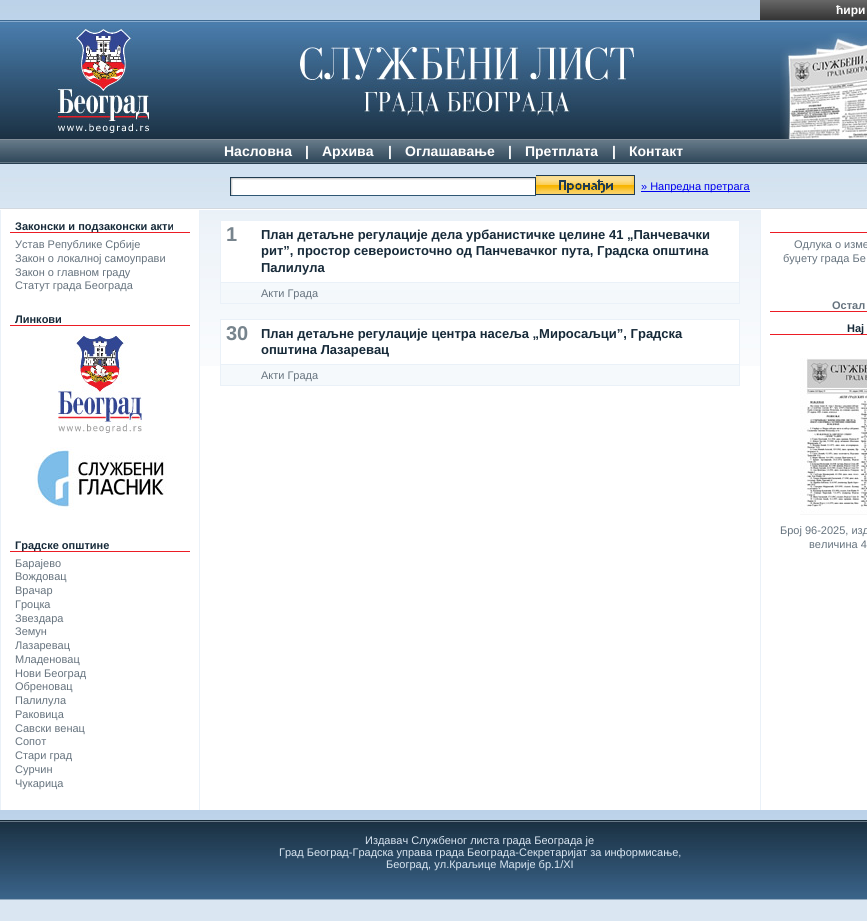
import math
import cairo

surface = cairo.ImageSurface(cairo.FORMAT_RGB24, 867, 921)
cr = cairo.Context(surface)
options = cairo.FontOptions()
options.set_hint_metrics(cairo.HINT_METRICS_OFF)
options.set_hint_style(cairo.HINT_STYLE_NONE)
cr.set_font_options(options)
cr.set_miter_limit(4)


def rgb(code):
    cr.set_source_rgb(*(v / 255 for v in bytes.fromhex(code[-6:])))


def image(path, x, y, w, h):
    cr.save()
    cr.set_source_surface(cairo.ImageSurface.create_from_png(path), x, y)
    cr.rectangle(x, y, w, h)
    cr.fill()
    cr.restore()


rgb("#dae6f2")
cr.paint()
image("img/1.png", 0, 0, 867, 208)
image("img/2.png", 760, 0, 107, 20)
image("img/3.png", 0, 21, 867, 118)
rgb("#3e6a93")
cr.rectangle(0, 20, 867, 1)
cr.fill()
image("img/4.png", 54, 29, 96, 104)
image("img/5.png", 299, 45, 336, 72)
image("img/6.png", 780, 33, 87, 106)
image("img/7.png", 0, 140, 867, 22)
for x, y, w, h, color in [
    (0, 139, 867, 1, "#828e98"),
    (0, 162, 867, 1, "#627583"),
    (0, 163, 867, 1, "#273e4f"),
    (0, 208, 867, 1, "#d2d8df"),
]:
    rgb(color)
    cr.rectangle(x, y, w, h)
    cr.fill()
image("img/8.png", 231, 178, 304, 17)
for x, y, w, h, color in [
    (230, 177, 306, 1, "#203c50"),
    (535, 177, 1, 19, "#203c50"),
    (230, 195, 306, 1, "#2f5774"),
    (230, 177, 1, 19, "#203c50"),
]:
    rgb(color)
    cr.rectangle(x, y, w, h)
    cr.fill()
image("img/9.png", 536, 175, 99, 20)
rgb("#0000ee")
cr.rectangle(641, 191, 109, 1)
cr.fill()
rgb("#ffffff")
cr.rectangle(0, 209, 867, 601)
cr.fill()
image("img/10.png", 200, 210, 560, 156)
image("img/11.png", 0, 210, 867, 600)
rgb("#ec1c24")
cr.rectangle(10, 232, 180, 1)
cr.fill()
cr.rectangle(10, 325, 180, 1)
cr.fill()
image("img/12.png", 58, 336, 84, 97)
image("img/13.png", 34, 447, 133, 63)
cr.rectangle(10, 551, 180, 1)
cr.fill()
rgb("#ffffff")
cr.rectangle(221, 221, 518, 61)
cr.fill()
cr.rectangle(220.5, 220.5, 519, 83)
rgb("#eaf1f8")
cr.set_line_width(1)
cr.stroke()
for x, y, w, h, color in [
    (221, 283, 518, 7, "#f5f9fc"),
    (221, 282, 518, 1, "#eaf1f8"),
    (221, 320, 518, 44, "#ffffff"),
]:
    rgb(color)
    cr.rectangle(x, y, w, h)
    cr.fill()
cr.rectangle(220.5, 319.5, 519, 66)
rgb("#eaf1f8")
cr.stroke()
for x, y, w, h, color in [
    (221, 365, 518, 20, "#f5f9fc"),
    (221, 364, 518, 1, "#eaf1f8"),
    (770, 232, 97, 1, "#ec1c24"),
    (770, 311, 97, 1, "#ec1c24"),
    (770, 334, 97, 1, "#ec1c24"),
]:
    rgb(color)
    cr.rectangle(x, y, w, h)
    cr.fill()
image("img/14.png", 800, 358, 67, 157)
image("img/15.png", 0, 810, 867, 90)
cr.select_font_face("Liberation Sans", cairo.FONT_SLANT_NORMAL, cairo.FONT_WEIGHT_BOLD)
cr.set_font_size(12)
rgb("#ffffff")
cr.move_to(836, 14)
cr.show_text("ћири")
cr.set_font_size(14)
for x, y, s in [
    (224, 156, "Насловна"),
    (305, 156, "|"),
    (322, 156, "Архива"),
    (388, 156, "|"),
    (405, 156, "Оглашавање"),
    (508, 156, "|"),
    (525, 156, "Претплата"),
    (612, 156, "|"),
    (629, 156, "Контакт"),
]:
    cr.move_to(x, y)
    cr.show_text(s)
cr.select_font_face("Liberation Sans")
cr.set_font_size(11)
rgb("#0000ee")
cr.move_to(641, 190)
cr.show_text("» Напредна претрага")
cr.select_font_face("Liberation Sans", cairo.FONT_SLANT_NORMAL, cairo.FONT_WEIGHT_BOLD)
rgb("#172a39")
cr.move_to(15, 230)
cr.show_text("Законски и подзаконски акти")
cr.select_font_face("Liberation Sans")
rgb("#66737e")
for x, y, s in [
    (15, 248, "Устав Републике Србије"),
    (15, 262, "Закон о локалној самоуправи"),
    (15, 276, "Закон о главном граду"),
    (15, 289, "Статут града Београда"),
]:
    cr.move_to(x, y)
    cr.show_text(s)
cr.select_font_face("Liberation Sans", cairo.FONT_SLANT_NORMAL, cairo.FONT_WEIGHT_BOLD)
rgb("#172a39")
cr.move_to(15, 323)
cr.show_text("Линкови")
cr.move_to(15, 549)
cr.show_text("Градске општине")
cr.select_font_face("Liberation Sans")
rgb("#66737e")
for x, y, s in [
    (15, 567, "Барајево"),
    (15, 580, "Вождовац"),
    (15, 594, "Врачар"),
    (15, 608, "Гроцка"),
    (15, 622, "Звездара"),
    (15, 635, "Земун"),
    (15, 649, "Лазаревац"),
    (15, 663, "Младеновац"),
    (15, 677, "Нови Београд"),
    (15, 690, "Обреновац"),
    (15, 704, "Палилула"),
    (15, 718, "Раковица"),
    (15, 732, "Савски венац"),
    (15, 745, "Сопот"),
    (15, 759, "Стари град"),
    (15, 773, "Сурчин"),
    (15, 787, "Чукарица"),
]:
    cr.move_to(x, y)
    cr.show_text(s)
cr.select_font_face("Liberation Sans", cairo.FONT_SLANT_NORMAL, cairo.FONT_WEIGHT_BOLD)
cr.set_font_size(20)
rgb("#77848d")
cr.move_to(226, 241)
cr.show_text("1")
cr.set_font_size(13)
rgb("#172a39")
for x, y, s in [
    (261, 239, "План детаљне регулације дела урбанистичке целине 41 „Панчевачки"),
    (261, 255, "рит”, простор североисточно од Панчевачког пута, Градска општина"),
    (261, 272, "Палилула"),
]:
    cr.move_to(x, y)
    cr.show_text(s)
cr.select_font_face("Liberation Sans")
cr.set_font_size(11)
rgb("#66737e")
cr.move_to(261, 297)
cr.show_text("Акти Града")
cr.select_font_face("Liberation Sans", cairo.FONT_SLANT_NORMAL, cairo.FONT_WEIGHT_BOLD)
cr.set_font_size(20)
rgb("#77848d")
cr.move_to(226, 340)
cr.show_text("30")
cr.set_font_size(13)
rgb("#172a39")
cr.move_to(261, 338)
cr.show_text("План детаљне регулације центра насеља „Миросаљци”, Градска")
cr.move_to(261, 354)
cr.show_text("општина Лазаревац")
cr.select_font_face("Liberation Sans")
cr.set_font_size(11)
rgb("#66737e")
for x, y, s in [
    (261, 379, "Акти Града"),
    (794, 248, "Одлука о изме"),
    (783, 262, "буџету града Бе"),
]:
    cr.move_to(x, y)
    cr.show_text(s)
cr.select_font_face("Liberation Sans", cairo.FONT_SLANT_NORMAL, cairo.FONT_WEIGHT_BOLD)
cr.move_to(832, 309)
cr.show_text("Остал")
rgb("#172a39")
cr.move_to(847, 332)
cr.show_text("Нај")
cr.select_font_face("Liberation Sans")
rgb("#66737e")
cr.move_to(780, 534)
cr.show_text("Број 96-2025, изд")
cr.move_to(809, 548)
cr.show_text("величина 4")
rgb("#dae6f2")
for x, y, s in [
    (365, 844, "Издавач Службеног листа града Београда је"),
    (279, 856, "Град Београд-Градска управа града Београда-Секретаријат за информисање,"),
    (386, 868, "Београд, ул.Краљице Марије бр.1/XI"),
]:
    cr.move_to(x, y)
    cr.show_text(s)
surface.write_to_png("page.png")
